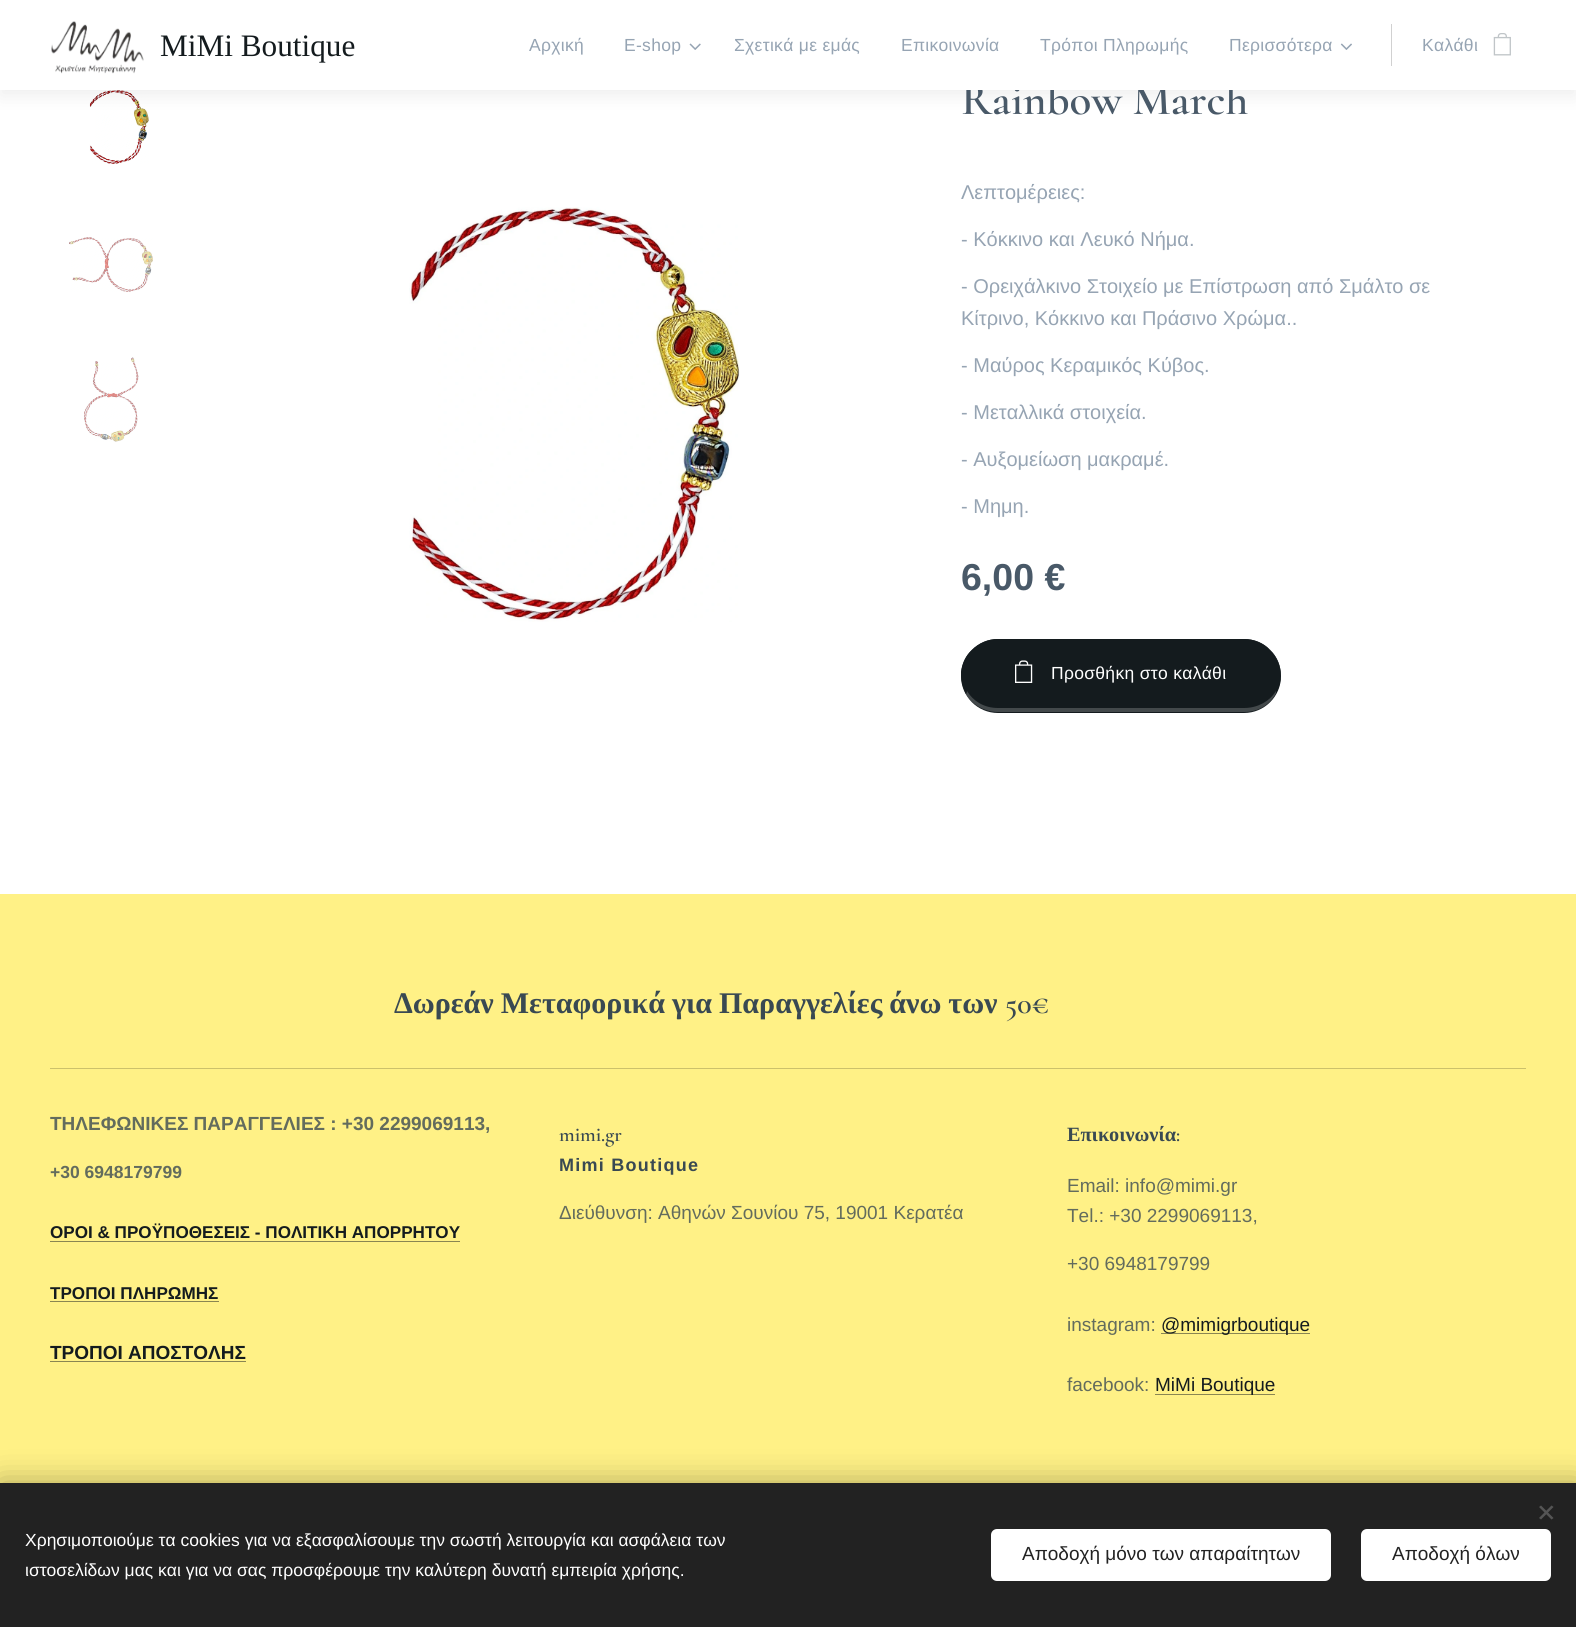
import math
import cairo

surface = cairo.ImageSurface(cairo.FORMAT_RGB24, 1576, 1627)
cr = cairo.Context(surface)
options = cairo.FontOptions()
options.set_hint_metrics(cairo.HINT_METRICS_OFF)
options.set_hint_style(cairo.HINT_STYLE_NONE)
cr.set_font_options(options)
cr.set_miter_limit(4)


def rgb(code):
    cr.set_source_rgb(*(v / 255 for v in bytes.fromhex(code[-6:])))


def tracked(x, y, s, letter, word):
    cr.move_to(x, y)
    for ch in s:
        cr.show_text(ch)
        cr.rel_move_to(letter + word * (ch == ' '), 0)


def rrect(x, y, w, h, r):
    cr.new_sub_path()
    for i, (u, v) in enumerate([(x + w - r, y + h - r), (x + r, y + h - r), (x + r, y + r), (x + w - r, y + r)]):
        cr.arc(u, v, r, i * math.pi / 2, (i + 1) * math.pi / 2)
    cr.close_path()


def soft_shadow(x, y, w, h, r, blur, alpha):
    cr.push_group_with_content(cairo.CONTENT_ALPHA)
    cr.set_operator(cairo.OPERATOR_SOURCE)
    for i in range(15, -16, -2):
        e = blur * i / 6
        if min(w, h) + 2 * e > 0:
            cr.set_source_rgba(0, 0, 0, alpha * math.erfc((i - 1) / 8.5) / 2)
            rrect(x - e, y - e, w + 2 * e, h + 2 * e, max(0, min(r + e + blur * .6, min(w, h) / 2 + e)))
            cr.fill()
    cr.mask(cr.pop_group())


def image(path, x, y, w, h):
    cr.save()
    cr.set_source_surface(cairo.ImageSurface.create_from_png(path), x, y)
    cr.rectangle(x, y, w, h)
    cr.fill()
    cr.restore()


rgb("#ffffff")
cr.paint()
image("img/5.png", 89, 90, 60, 74)
rgb("#000000")
soft_shadow(0, 6, 1576, 90, 0, 9.5, 0.07)
image("img/6.png", 69, 237, 84, 55)
image("img/7.png", 84, 357, 55, 85)
image("img/8.png", 409, 207, 331, 415)
rgb("#141b1e")
rrect(961, 639, 320, 74, 37)
cr.fill()
cr.new_path()
cr.move_to(998, 639)
cr.curve_to(988, 639, 979, 643, 972, 650)
cr.line_to(973, 650)
cr.curve_to(979, 644, 988, 640, 998, 640)
cr.line_to(1244, 640)
cr.curve_to(1254, 640, 1263, 644, 1270, 650)
cr.curve_to(1264, 643, 1254, 639, 1244, 639)
cr.close_path()
cr.fill()
cr.new_path()
cr.move_to(1276, 693)
cr.curve_to(1284, 680, 1282, 661, 1270, 650)
cr.curve_to(1280, 661, 1284, 678, 1276, 691)
cr.close_path()
cr.fill()
cr.set_source_rgba(1, 1, 1, 0.2)
cr.new_path()
cr.move_to(1276, 693)
cr.curve_to(1270, 705, 1258, 712, 1244, 712)
cr.line_to(998, 712)
cr.curve_to(985, 712, 972, 705, 966, 694)
cr.line_to(967, 691)
cr.curve_to(973, 701, 984, 708, 998, 708)
cr.line_to(1244, 708)
cr.curve_to(1258, 708, 1270, 701, 1276, 691)
cr.close_path()
cr.fill()
rgb("#141b1e")
cr.new_path()
cr.move_to(961, 672)
cr.curve_to(962, 663, 966, 655, 972, 650)
cr.line_to(973, 650)
cr.curve_to(962, 661, 958, 678, 967, 691)
cr.line_to(966, 694)
cr.curve_to(962, 686, 961, 680, 961, 672)
cr.close_path()
cr.fill()
image("img/9.png", 1015, 660, 18, 23)
for x, y, w, h, color in [
    (0, 894, 1576, 589, "#fff186"),
    (50, 1068, 1476, 1, "#ccc16b"),
    (50, 1241, 410, 1, "#8a8652"),
    (50, 1301, 169, 1, "#8a8652"),
    (50, 1361, 196, 1, "#8a8652"),
    (1161, 1333, 149, 1, "#8a8652"),
    (1155, 1394, 120, 1, "#8a8652"),
]:
    rgb(color)
    cr.rectangle(x, y, w, h)
    cr.fill()
rgb("#000000")
soft_shadow(0, 1483, 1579, 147, 0, 15.5, 0.33)
rgb("#222222")
cr.rectangle(0, 1483, 1576, 144)
cr.fill()
rgb("#555555")
cr.new_path()
cr.move_to(1539, 1518)
cr.line_to(1551.5, 1505.5)
cr.line_to(1553.5, 1507)
cr.line_to(1541, 1519.5)
cr.close_path()
cr.fill()
cr.new_path()
cr.move_to(1541, 1505.5)
cr.line_to(1553.5, 1518)
cr.line_to(1551.5, 1519.5)
cr.line_to(1539, 1507)
cr.close_path()
cr.fill()
rgb("#ffffff")
rrect(991, 1529, 340, 52, 6)
cr.fill()
rrect(1361, 1529, 190, 52, 6)
cr.fill()
cr.select_font_face("Cormorant SemiBold")
cr.set_font_size(45)
rgb("#495968")
cr.move_to(961, 114)
cr.show_text("Rainbow March")
rgb("#ffffff")
cr.rectangle(0, 0, 1576, 90)
cr.fill()
image("img/4.png", 1493, 33, 18, 23)
cr.select_font_face("Liberation Sans")
cr.set_font_size(17.5)
rgb("#96a4b3")
tracked(1422, 51, "Καλάθι", 0.3, 0)
rgb("#d1d1d1")
cr.rectangle(1391, 24, 1, 42)
cr.fill()
image("img/3.png", 1340, 43, 12, 7)
rgb("#96a4b3")
for x, y, s in [
    (1229, 51, "Περισσότερα"),
    (1040, 51, "Τρόποι Πληρωμής"),
    (901, 51, "Επικοινωνία"),
    (734, 51, "Σχετικά με εμάς"),
]:
    tracked(x, y, s, 0.3, 0)
image("img/2.png", 689, 43, 12, 7)
tracked(624, 51, "E-shop", 0.3, 0)
tracked(529, 51, "Αρχική", 0.3, 0)
cr.select_font_face("Tinos")
cr.set_font_size(31.25)
rgb("#141b1e")
cr.move_to(160, 56)
cr.show_text("MiMi Boutique")
image("img/1.png", 51, 21, 93, 53)
cr.select_font_face("Liberation Sans")
cr.set_font_size(20)
rgb("#96a4b3")
for x, y, s in [
    (961, 199, "Λεπτομέρειες:"),
    (961, 246, "- Κόκκινο και Λευκό Νήμα."),
    (961, 293, "- Ορειχάλκινο Στοιχείο με Επίστρωση από Σμάλτο σε"),
    (961, 325, "Κίτρινο, Κόκκινο και Πράσινο Χρώμα.."),
    (961, 372, "- Μαύρος Κεραμικός Κύβος."),
    (961, 419, "- Mεταλλικά στοιχεία."),
    (961, 466, "- Αυξομείωση μακραμέ."),
    (961, 513, "- Μημη."),
]:
    cr.move_to(x, y)
    cr.show_text(s)
cr.select_font_face("Liberation Sans", cairo.FONT_SLANT_NORMAL, cairo.FONT_WEIGHT_BOLD)
cr.set_font_size(37.5)
rgb("#495968")
cr.move_to(961, 590)
cr.show_text("6,00 €")
cr.select_font_face("Liberation Sans")
cr.set_font_size(17.5)
rgb("#ffffff")
tracked(1051, 679, "Προσθήκη στο καλάθι", 0.3, 0)
cr.select_font_face("Liberation Serif", cairo.FONT_SLANT_NORMAL, cairo.FONT_WEIGHT_BOLD)
cr.set_font_size(30)
rgb("#394952")
tracked(394, 1013, "Δωρεάν Μεταφορικά για Παραγγελίες άνω των", 0, -0.5)
cr.select_font_face("Cormorant SemiBold")
cr.move_to(1005, 1013)
cr.show_text("50€")
cr.select_font_face("Liberation Sans", cairo.FONT_SLANT_NORMAL, cairo.FONT_WEIGHT_BOLD)
cr.set_font_size(19)
rgb("#636c5d")
cr.move_to(50, 1130)
cr.show_text("ΤΗΛΕΦΩΝΙΚΕΣ ΠΑΡΑΓΓΕΛΙΕΣ : +30 2299069113,")
cr.set_font_size(17.5)
cr.move_to(50, 1178)
cr.show_text("+30 6948179799")
cr.set_font_size(17.1)
rgb("#141b1e")
cr.move_to(50, 1238)
cr.show_text("ΟΡΟΙ & ΠΡΟΫΠΟΘΕΣΕΙΣ - ΠΟΛΙΤΙΚΗ ΑΠΟΡΡΗΤΟΥ")
cr.move_to(50, 1299)
cr.show_text("ΤΡΟΠΟΙ ΠΛΗΡΩΜΗΣ")
cr.set_font_size(19)
cr.move_to(50, 1359)
cr.show_text("ΤΡΟΠΟΙ ΑΠΟΣΤΟΛΗΣ")
cr.select_font_face("Cormorant SemiBold")
cr.set_font_size(20.25)
rgb("#394952")
cr.move_to(559, 1141)
cr.show_text("mimi.gr")
cr.select_font_face("Liberation Sans", cairo.FONT_SLANT_NORMAL, cairo.FONT_WEIGHT_BOLD)
cr.set_font_size(18)
tracked(559, 1171, "Mimi Boutique", 1.25, 0)
cr.select_font_face("Liberation Sans")
cr.set_font_size(19)
rgb("#636c5d")
cr.move_to(559, 1219)
cr.show_text("Διεύθυνση: Αθηνών Σουνίου 75, 19001 Κερατέα")
cr.select_font_face("Liberation Serif", cairo.FONT_SLANT_NORMAL, cairo.FONT_WEIGHT_BOLD)
cr.set_font_size(20.25)
rgb("#394952")
cr.move_to(1067, 1141)
cr.show_text("Επικοινωνία")
cr.select_font_face("Cormorant SemiBold")
cr.move_to(1176, 1141)
cr.show_text(":")
cr.select_font_face("Liberation Sans")
cr.set_font_size(19)
rgb("#636c5d")
for x, y, s in [
    (1067, 1192, "Email: info@mimi.gr"),
    (1067, 1222, "Tel.: +30 2299069113,"),
    (1067, 1270, "+30 6948179799"),
    (1067, 1331, "instagram:"),
]:
    cr.move_to(x, y)
    cr.show_text(s)
rgb("#141b1e")
cr.move_to(1161, 1331)
cr.show_text("@mimigrboutique")
rgb("#636c5d")
cr.move_to(1067, 1391)
cr.show_text("facebook:")
rgb("#141b1e")
cr.move_to(1155, 1391)
cr.show_text("MiMi Boutique")
cr.set_font_size(17.5)
rgb("#ffffff")
cr.move_to(25, 1546)
cr.show_text("Χρησιμοποιούμε τα cookies για να εξασφαλίσουμε την σωστή λειτουργία και ασφάλεια των")
cr.move_to(25, 1576)
cr.show_text("ιστοσελίδων μας και για να σας προσφέρουμε την καλύτερη δυνατή εμπειρία χρήσης.")
cr.set_font_size(19)
rgb("#222222")
cr.move_to(1022, 1560)
cr.show_text("Αποδοχή μόνο των απαραίτητων")
cr.move_to(1392, 1560)
cr.show_text("Αποδοχή όλων")
surface.write_to_png("page.png")
